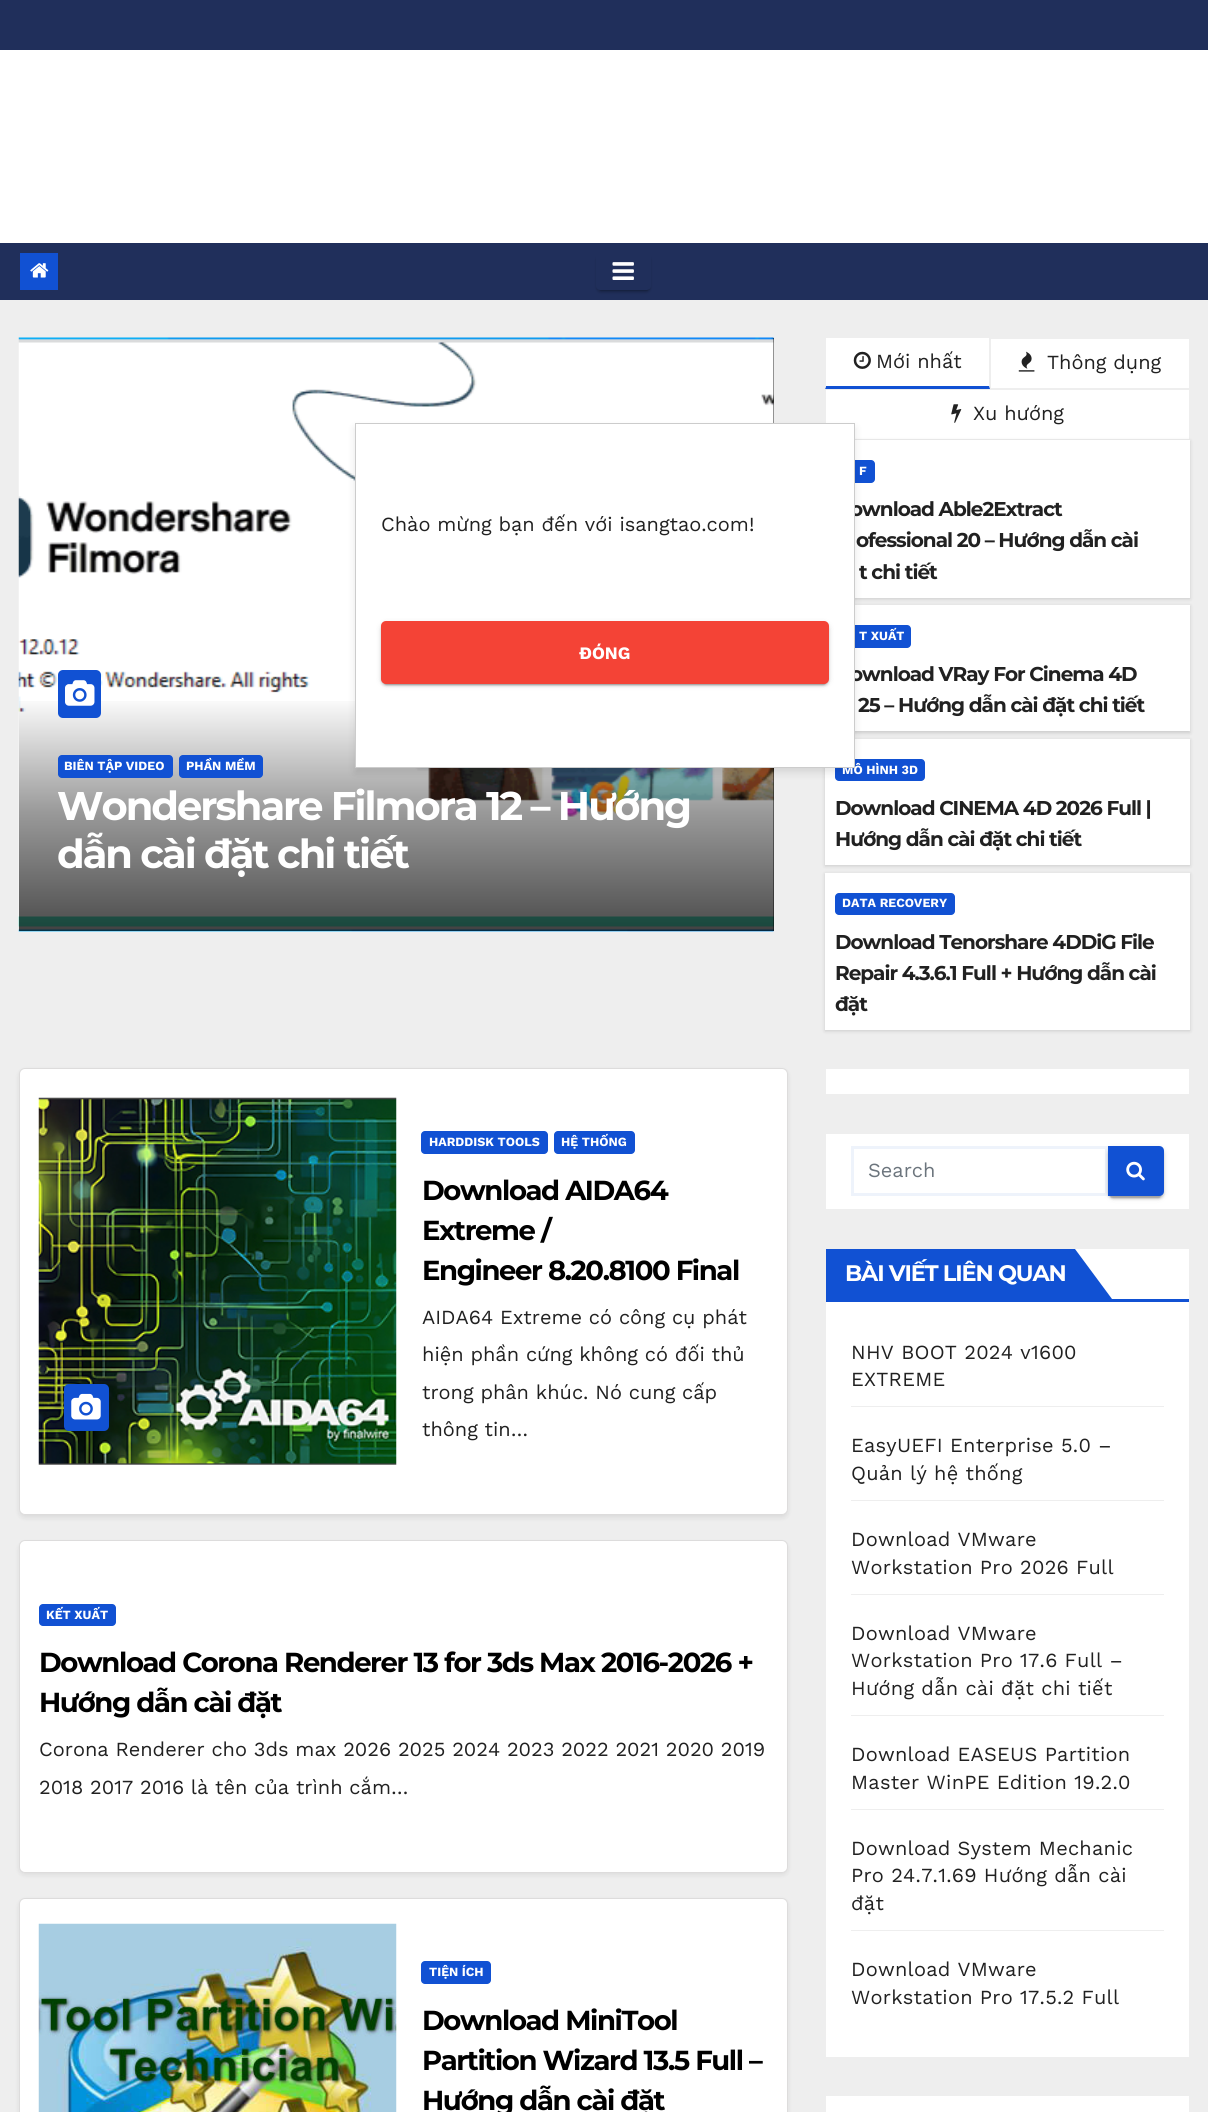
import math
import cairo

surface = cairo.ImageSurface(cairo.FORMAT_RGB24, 1208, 2112)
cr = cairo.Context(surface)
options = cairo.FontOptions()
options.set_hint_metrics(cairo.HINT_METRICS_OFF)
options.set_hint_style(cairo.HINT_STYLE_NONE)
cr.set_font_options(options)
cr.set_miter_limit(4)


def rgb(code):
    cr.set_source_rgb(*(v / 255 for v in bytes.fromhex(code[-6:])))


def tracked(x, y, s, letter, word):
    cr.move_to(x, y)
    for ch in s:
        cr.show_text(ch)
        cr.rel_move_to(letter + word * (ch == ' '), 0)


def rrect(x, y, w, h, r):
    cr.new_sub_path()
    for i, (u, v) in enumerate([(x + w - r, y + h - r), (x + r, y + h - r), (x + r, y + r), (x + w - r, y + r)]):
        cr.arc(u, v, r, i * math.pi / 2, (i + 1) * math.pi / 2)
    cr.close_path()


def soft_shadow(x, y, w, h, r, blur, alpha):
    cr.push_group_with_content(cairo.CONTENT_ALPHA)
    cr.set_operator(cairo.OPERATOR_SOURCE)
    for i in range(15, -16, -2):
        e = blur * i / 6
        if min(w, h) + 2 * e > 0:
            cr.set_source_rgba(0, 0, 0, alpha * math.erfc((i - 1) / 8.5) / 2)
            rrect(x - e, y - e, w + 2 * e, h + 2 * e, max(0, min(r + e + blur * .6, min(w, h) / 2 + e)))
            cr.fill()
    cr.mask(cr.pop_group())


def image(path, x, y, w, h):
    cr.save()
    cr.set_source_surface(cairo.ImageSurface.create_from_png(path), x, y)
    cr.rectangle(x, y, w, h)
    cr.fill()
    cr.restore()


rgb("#eeeeee")
cr.paint()
for x, y, w, h, color in [
    (0, 0, 1208, 50, "#202f5b"),
    (0, 50, 1208, 193, "#ffffff"),
    (0, 243, 1208, 57, "#202f5b"),
    (20, 253, 38, 37, "#1151d3"),
]:
    rgb(color)
    cr.rectangle(x, y, w, h)
    cr.fill()
image("img/1.png", 30, 263, 19, 15)
cr.save()
cr.set_fill_rule(cairo.FILL_RULE_EVEN_ODD)
cr.new_path()
cr.move_to(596, 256)
cr.line_to(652, 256)
cr.line_to(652, 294)
cr.line_to(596, 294)
cr.close_path()
cr.move_to(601, 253)
cr.line_to(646, 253)
cr.curve_to(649, 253, 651, 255, 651, 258)
cr.line_to(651, 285)
cr.curve_to(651, 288, 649, 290, 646, 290)
cr.line_to(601, 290)
cr.curve_to(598, 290, 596, 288, 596, 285)
cr.line_to(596, 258)
cr.curve_to(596, 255, 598, 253, 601, 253)
cr.close_path()
cr.clip()
rgb("#000000")
soft_shadow(599, 259, 50, 32, 2.5, 0.5, 0.2)
cr.restore()
cr.save()
cr.set_fill_rule(cairo.FILL_RULE_EVEN_ODD)
cr.new_path()
cr.move_to(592, 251)
cr.line_to(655, 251)
cr.line_to(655, 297)
cr.line_to(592, 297)
cr.close_path()
cr.move_to(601, 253)
cr.line_to(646, 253)
cr.curve_to(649, 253, 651, 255, 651, 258)
cr.line_to(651, 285)
cr.curve_to(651, 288, 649, 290, 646, 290)
cr.line_to(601, 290)
cr.curve_to(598, 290, 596, 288, 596, 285)
cr.line_to(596, 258)
cr.curve_to(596, 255, 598, 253, 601, 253)
cr.close_path()
cr.clip()
rgb("#000000")
soft_shadow(596, 255, 55, 38, 5, 1, 0.14)
cr.restore()
image("img/2.png", 612, 262, 22, 18)
rgb("#000000")
cr.rectangle(773, 338, 1, 593)
cr.fill()
image("img/3.png", 18, 337, 756, 595)
gradient = cairo.LinearGradient(396, 695, 396, 931)
gradient.add_color_stop_rgba(0, 0, 0, 0, 0)
gradient.add_color_stop_rgba(0.5, 0, 0, 0, 0.4)
gradient.add_color_stop_rgba(1, 0, 0, 0, 0.7)
cr.set_source(gradient)
cr.rectangle(19, 701, 755, 230)
cr.fill()
rgb("#1151d3")
rrect(58, 670, 43, 48, 5)
cr.fill()
image("img/4.png", 65, 680, 30, 26)
rrect(58, 755, 115, 23, 4)
cr.fill()
rrect(179, 755, 84, 23, 4)
cr.fill()
rgb("#ffffff")
cr.rectangle(825, 338, 165, 51)
cr.fill()
rgb("#eeeeee")
cr.new_path()
cr.move_to(990, 338)
cr.line_to(990, 389)
cr.line_to(989, 386)
cr.line_to(989, 338)
cr.close_path()
cr.fill()
rgb("#1151d3")
cr.new_path()
cr.move_to(990, 389)
cr.line_to(825, 389)
cr.line_to(826, 386)
cr.line_to(989, 386)
cr.close_path()
cr.fill()
rgb("#eeeeee")
cr.new_path()
cr.move_to(825, 389)
cr.line_to(825, 338)
cr.line_to(826, 338)
cr.line_to(826, 386)
cr.close_path()
cr.fill()
image("img/5.png", 853, 351, 18, 18)
rgb("#ffffff")
cr.rectangle(991, 339, 198, 49)
cr.fill()
image("img/6.png", 1018, 351, 17, 21)
cr.rectangle(826, 390, 363, 49)
cr.fill()
image("img/7.png", 951, 404, 11, 19)
rgb("#000000")
soft_shadow(825, 441, 365, 158, 0, 2, 0.15)
rgb("#ffffff")
cr.rectangle(855, 440, 335, 158)
cr.fill()
rgb("#1151d3")
rrect(835, 460, 40, 23, 4)
cr.fill()
rgb("#000000")
soft_shadow(825, 606, 365, 127, 0, 2, 0.15)
rgb("#ffffff")
cr.rectangle(855, 605, 335, 126)
cr.fill()
rgb("#1151d3")
rrect(835, 625, 76, 23, 4)
cr.fill()
rgb("#000000")
soft_shadow(825, 740, 365, 126, 0, 2, 0.15)
rgb("#ffffff")
cr.rectangle(825, 739, 365, 126)
cr.fill()
rgb("#1151d3")
rrect(835, 759, 90, 22, 4)
cr.fill()
rgb("#000000")
soft_shadow(825, 874, 365, 157, 0, 2, 0.15)
rgb("#ffffff")
cr.rectangle(825, 873, 365, 157)
cr.fill()
rgb("#1151d3")
rrect(835, 893, 120, 22, 4)
cr.fill()
rgb("#000000")
soft_shadow(19, 1070, 769, 448, 6, 2.5, 0.08)
rgb("#ffffff")
rrect(19.5, 1068.5, 768, 446, 5.5)
cr.fill_preserve()
rgb("#dddcdc")
cr.set_line_width(1)
cr.stroke()
image("img/8.png", 38, 1094, 359, 375)
rgb("#1151d3")
rrect(64, 1384, 45, 47, 5)
cr.fill()
image("img/9.png", 71, 1393, 30, 27)
rrect(421, 1131, 127, 23, 4)
cr.fill()
rrect(554, 1131, 81, 23, 4)
cr.fill()
rgb("#000000")
soft_shadow(19, 1543, 769, 332, 6, 2.5, 0.08)
rgb("#ffffff")
rrect(19.5, 1540.5, 768, 332, 5.5)
cr.fill_preserve()
rgb("#dddcdc")
cr.stroke()
rgb("#1151d3")
rrect(39, 1604, 77, 22, 4)
cr.fill()
rgb("#000000")
soft_shadow(19, 1900, 769, 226, 6, 2.5, 0.08)
rgb("#ffffff")
rrect(19.5, 1898.5, 768, 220, 5.5)
cr.fill_preserve()
rgb("#dddcdc")
cr.stroke()
image("img/10.png", 38, 1923, 359, 189)
rgb("#1151d3")
rrect(421, 1961, 70, 23, 4)
cr.fill()
rgb("#ffffff")
cr.rectangle(826, 1069, 363, 25)
cr.fill()
cr.rectangle(826, 1134, 363, 75)
cr.fill()
cr.rectangle(852.5, 1147.5, 254, 47)
rgb("#eef3fb")
cr.set_line_width(3)
cr.stroke()
rgb("#000000")
soft_shadow(1108, 1148, 56, 50, 5, 3, 0.12)
soft_shadow(1110, 1153, 51, 45, 2.5, 0.5, 0.2)
soft_shadow(1108, 1149, 56, 50, 5, 1, 0.14)
rgb("#1151d3")
cr.new_path()
cr.move_to(1108, 1146)
cr.line_to(1159, 1146)
cr.curve_to(1162, 1146, 1164, 1148, 1164, 1151)
cr.line_to(1164, 1191)
cr.curve_to(1164, 1194, 1162, 1196, 1159, 1196)
cr.line_to(1108, 1196)
cr.close_path()
cr.fill()
image("img/11.png", 1126, 1161, 19, 20)
for x, y, w, h, color in [
    (826, 1249, 363, 808, "#ffffff"),
    (826, 1299, 363, 3, "#1151d3"),
    (826, 1249, 249, 50, "#1151d3"),
]:
    rgb(color)
    cr.rectangle(x, y, w, h)
    cr.fill()
cr.new_path()
cr.move_to(1075, 1299)
cr.line_to(1075, 1249)
cr.line_to(1112, 1299)
cr.close_path()
cr.fill()
for x, y, w, h, color in [
    (851, 1406, 313, 1, "#eeeeee"),
    (851, 1500, 313, 1, "#eeeeee"),
    (851, 1594, 313, 1, "#eeeeee"),
    (851, 1715, 313, 1, "#eeeeee"),
    (851, 1809, 313, 1, "#eeeeee"),
    (851, 1930, 313, 1, "#eeeeee"),
    (826, 2096, 363, 16, "#ffffff"),
]:
    rgb(color)
    cr.rectangle(x, y, w, h)
    cr.fill()
rgb("#000000")
soft_shadow(355, 428, 500, 345, 0, 4, 0.1)
cr.select_font_face("Work Sans", cairo.FONT_SLANT_NORMAL, cairo.FONT_WEIGHT_BOLD)
cr.set_font_size(12.5)
rgb("#ffffff")
cr.move_to(64, 770)
cr.show_text("BIÊN TẬP VIDEO")
cr.move_to(186, 770)
cr.show_text("PHẦN MỀM")
cr.select_font_face("Montserrat", cairo.FONT_SLANT_NORMAL, cairo.FONT_WEIGHT_BOLD)
cr.set_font_size(40)
tracked(57, 820, "Wondershare Filmora 12 – Hướng", -2, 0)
tracked(57, 868, "dẫn cài đặt chi tiết", -2, 0)
cr.select_font_face("Work Sans")
cr.set_font_size(20)
rgb("#212121")
for x, y, s in [
    (876, 368, "Mới nhất"),
    (1047, 369, "Thông dụng"),
    (973, 420, "Xu hướng"),
]:
    cr.move_to(x, y)
    cr.show_text(s)
cr.select_font_face("Work Sans", cairo.FONT_SLANT_NORMAL, cairo.FONT_WEIGHT_BOLD)
cr.set_font_size(12.5)
rgb("#ffffff")
cr.move_to(859, 475)
cr.show_text("F")
cr.select_font_face("Montserrat", cairo.FONT_SLANT_NORMAL, cairo.FONT_WEIGHT_BOLD)
cr.set_font_size(20)
rgb("#212121")
for x, y, s in [
    (850, 516, "ownload Able2Extract"),
    (856, 547, "ofessional 20 – Hướng dẫn cài"),
    (859, 579, "t chi tiết"),
]:
    tracked(x, y, s, -1, 0)
cr.select_font_face("Work Sans", cairo.FONT_SLANT_NORMAL, cairo.FONT_WEIGHT_BOLD)
cr.set_font_size(12.5)
rgb("#ffffff")
cr.move_to(859, 640)
cr.show_text("T XUẤT")
cr.select_font_face("Montserrat", cairo.FONT_SLANT_NORMAL, cairo.FONT_WEIGHT_BOLD)
cr.set_font_size(20)
rgb("#212121")
tracked(850, 681, "ownload VRay For Cinema 4D", -1, 0)
tracked(858, 712, "25 – Hướng dẫn cài đặt chi tiết", -1, 0)
cr.select_font_face("Work Sans", cairo.FONT_SLANT_NORMAL, cairo.FONT_WEIGHT_BOLD)
cr.set_font_size(12.5)
rgb("#ffffff")
cr.move_to(842, 774)
cr.show_text("MÔ HÌNH 3D")
cr.select_font_face("Montserrat", cairo.FONT_SLANT_NORMAL, cairo.FONT_WEIGHT_BOLD)
cr.set_font_size(20)
rgb("#212121")
tracked(835, 815, "Download CINEMA 4D 2026 Full |", -1, 0)
tracked(835, 846, "Hướng dẫn cài đặt chi tiết", -1, 0)
cr.select_font_face("Work Sans", cairo.FONT_SLANT_NORMAL, cairo.FONT_WEIGHT_BOLD)
cr.set_font_size(12.5)
rgb("#ffffff")
cr.move_to(842, 907)
cr.show_text("DATA RECOVERY")
cr.select_font_face("Montserrat", cairo.FONT_SLANT_NORMAL, cairo.FONT_WEIGHT_BOLD)
cr.set_font_size(20)
rgb("#212121")
for x, y, s in [
    (835, 949, "Download Tenorshare 4DDiG File"),
    (835, 980, "Repair 4.3.6.1 Full + Hướng dẫn cài"),
    (835, 1011, "đặt"),
]:
    tracked(x, y, s, -1, 0)
cr.select_font_face("Work Sans", cairo.FONT_SLANT_NORMAL, cairo.FONT_WEIGHT_BOLD)
cr.set_font_size(12.5)
rgb("#ffffff")
cr.move_to(429, 1146)
cr.show_text("HARDDISK TOOLS")
cr.move_to(561, 1146)
cr.show_text("HỆ THỐNG")
cr.select_font_face("Montserrat", cairo.FONT_SLANT_NORMAL, cairo.FONT_WEIGHT_BOLD)
cr.set_font_size(27.5)
rgb("#000000")
for x, y, s in [
    (422, 1200, "Download AIDA64"),
    (422, 1240, "Extreme /"),
    (422, 1280, "Engineer 8.20.8100 Final"),
]:
    tracked(x, y, s, -1.38, 0)
cr.select_font_face("Work Sans")
cr.set_font_size(20)
rgb("#212121")
for x, y, s in [
    (422, 1324, "AIDA64 Extreme có công cụ phát"),
    (422, 1361, "hiện phần cứng không có đối thủ"),
    (422, 1399, "trong phân khúc. Nó cung cấp"),
    (422, 1436, "thông tin…"),
]:
    cr.move_to(x, y)
    cr.show_text(s)
cr.select_font_face("Work Sans", cairo.FONT_SLANT_NORMAL, cairo.FONT_WEIGHT_BOLD)
cr.set_font_size(12.5)
rgb("#ffffff")
cr.move_to(46, 1619)
cr.show_text("KẾT XUẤT")
cr.select_font_face("Montserrat", cairo.FONT_SLANT_NORMAL, cairo.FONT_WEIGHT_BOLD)
cr.set_font_size(27.5)
rgb("#000000")
tracked(39, 1672, "Download Corona Renderer 13 for 3ds Max 2016-2026 +", -1.38, 0)
tracked(39, 1712, "Hướng dẫn cài đặt", -1.38, 0)
cr.select_font_face("Work Sans")
cr.set_font_size(20)
rgb("#212121")
cr.move_to(39, 1756)
cr.show_text("Corona Renderer cho 3ds max 2026 2025 2024 2023 2022 2021 2020 2019")
cr.move_to(39, 1794)
cr.show_text("2018 2017 2016 là tên của trình cắm…")
cr.select_font_face("Work Sans", cairo.FONT_SLANT_NORMAL, cairo.FONT_WEIGHT_BOLD)
cr.set_font_size(12.5)
rgb("#ffffff")
cr.move_to(429, 1976)
cr.show_text("TIỆN ÍCH")
cr.select_font_face("Montserrat", cairo.FONT_SLANT_NORMAL, cairo.FONT_WEIGHT_BOLD)
cr.set_font_size(27.5)
rgb("#000000")
for x, y, s in [
    (422, 2030, "Download MiniTool"),
    (422, 2070, "Partition Wizard 13.5 Full –"),
    (422, 2110, "Hướng dẫn cài đặt"),
]:
    tracked(x, y, s, -1.38, 0)
cr.select_font_face("Work Sans")
cr.set_font_size(20)
rgb("#6c757d")
cr.move_to(868, 1177)
cr.show_text("Search")
cr.select_font_face("Montserrat", cairo.FONT_SLANT_NORMAL, cairo.FONT_WEIGHT_BOLD)
cr.set_font_size(22.5)
rgb("#ffffff")
tracked(845, 1281, "BÀI VIẾT LIÊN QUAN", -1.1, 0)
cr.select_font_face("Work Sans")
cr.set_font_size(20)
rgb("#212121")
for x, y, s in [
    (851, 1359, "NHV BOOT 2024 v1600"),
    (851, 1386, "EXTREME"),
    (851, 1452, "EasyUEFI Enterprise 5.0 –"),
    (851, 1480, "Quản lý hệ thống"),
    (851, 1546, "Download VMware"),
    (851, 1574, "Workstation Pro 2026 Full"),
    (851, 1640, "Download VMware"),
    (851, 1667, "Workstation Pro 17.6 Full –"),
    (851, 1695, "Hướng dẫn cài đặt chi tiết"),
    (851, 1761, "Download EASEUS Partition"),
    (851, 1789, "Master WinPE Edition 19.2.0"),
    (851, 1855, "Download System Mechanic"),
    (851, 1882, "Pro 24.7.1.69 Hướng dẫn cài"),
    (851, 1910, "đặt"),
    (851, 1976, "Download VMware"),
    (851, 2004, "Workstation Pro 17.5.2 Full"),
]:
    tracked(x, y, s, 0.25, 0)
rgb("#ffffff")
cr.rectangle(355.5, 423.5, 499, 344)
cr.fill_preserve()
rgb("#cccccc")
cr.set_line_width(1)
cr.stroke()
rgb("#212121")
cr.move_to(381, 531)
cr.show_text("Chào mừng bạn đến với isangtao.com!")
rgb("#000000")
soft_shadow(381, 623, 448, 62, 5, 3, 0.12)
soft_shadow(384, 628, 442, 57, 2.5, 0.5, 0.2)
soft_shadow(381, 624, 448, 62, 5, 1, 0.14)
rgb("#f44336")
rrect(381, 621, 448, 63, 5)
cr.fill()
cr.select_font_face("Work Sans", cairo.FONT_SLANT_NORMAL, cairo.FONT_WEIGHT_BOLD)
cr.set_font_size(17.5)
rgb("#ffffff")
cr.move_to(579, 659)
cr.show_text("ĐÓNG")
surface.write_to_png("page.png")
